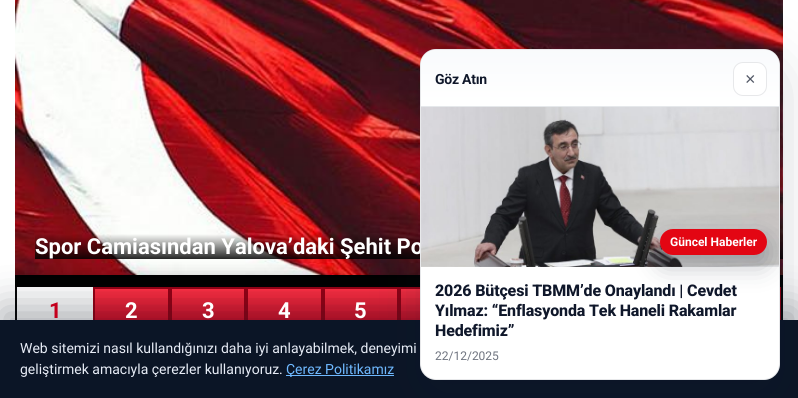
import math
import cairo

surface = cairo.ImageSurface(cairo.FORMAT_RGB24, 798, 398)
cr = cairo.Context(surface)
options = cairo.FontOptions()
options.set_hint_metrics(cairo.HINT_METRICS_OFF)
options.set_hint_style(cairo.HINT_STYLE_NONE)
cr.set_font_options(options)
cr.set_miter_limit(4)


def rgb(code):
    cr.set_source_rgb(*(v / 255 for v in bytes.fromhex(code[-6:])))


def tracked(x, y, s, letter, word):
    cr.move_to(x, y)
    for ch in s:
        cr.show_text(ch)
        cr.rel_move_to(letter + word * (ch == ' '), 0)


def rrect(x, y, w, h, r):
    cr.new_sub_path()
    for i, (u, v) in enumerate([(x + w - r, y + h - r), (x + r, y + h - r), (x + r, y + r), (x + w - r, y + r)]):
        cr.arc(u, v, r, i * math.pi / 2, (i + 1) * math.pi / 2)
    cr.close_path()


def soft_shadow(x, y, w, h, r, blur, alpha):
    cr.push_group_with_content(cairo.CONTENT_ALPHA)
    cr.set_operator(cairo.OPERATOR_SOURCE)
    for i in range(15, -16, -2):
        e = blur * i / 6
        if min(w, h) + 2 * e > 0:
            cr.set_source_rgba(0, 0, 0, alpha * math.erfc((i - 1) / 8.5) / 2)
            rrect(x - e, y - e, w + 2 * e, h + 2 * e, max(0, min(r + e + blur * .6, min(w, h) / 2 + e)))
            cr.fill()
    cr.mask(cr.pop_group())


def image(path, x, y, w, h):
    cr.save()
    cr.set_source_surface(cairo.ImageSurface.create_from_png(path), x, y)
    cr.rectangle(x, y, w, h)
    cr.fill()
    cr.restore()


rgb("#ffffff")
cr.paint()
rgb("#000000")
cr.rectangle(15, 275, 768, 12)
cr.fill()
image("img/1.png", 15, 0, 768, 275)
cr.save()
cr.rectangle(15, 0, 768, 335)
cr.clip()
rgb("#000000")
soft_shadow(15, 281, 768, 48, 0, 9, 0.35)
cr.restore()
rgb("#050505")
cr.rectangle(15, 287, 768, 33)
cr.fill()
rgb("#ffffff")
cr.rectangle(17, 287, 76, 33)
cr.fill()
gradient = cairo.LinearGradient(132, 289, 132, 333)
gradient.add_color_stop_rgba(0, 1, 0.188, 0.263, 1)
gradient.add_color_stop_rgba(1, 0.769, 0, 0.114, 1)
cr.set_source(gradient)
cr.rectangle(95, 289, 73, 31)
cr.fill()
cr.rectangle(94, 288, 75, 46)
rgb("#950014")
cr.stroke()
gradient = cairo.LinearGradient(208, 289, 208, 333)
gradient.add_color_stop_rgba(0, 1, 0.188, 0.263, 1)
gradient.add_color_stop_rgba(1, 0.769, 0, 0.114, 1)
cr.set_source(gradient)
cr.rectangle(172, 289, 72, 31)
cr.fill()
cr.rectangle(171, 288, 74, 46)
rgb("#950014")
cr.stroke()
gradient = cairo.LinearGradient(285, 289, 285, 333)
gradient.add_color_stop_rgba(0, 1, 0.188, 0.263, 1)
gradient.add_color_stop_rgba(1, 0.769, 0, 0.114, 1)
cr.set_source(gradient)
cr.rectangle(248, 289, 73, 31)
cr.fill()
cr.rectangle(247, 288, 75, 46)
rgb("#950014")
cr.stroke()
gradient = cairo.LinearGradient(361, 289, 361, 333)
gradient.add_color_stop_rgba(0, 1, 0.188, 0.263, 1)
gradient.add_color_stop_rgba(1, 0.769, 0, 0.114, 1)
cr.set_source(gradient)
cr.rectangle(325, 289, 72, 31)
cr.fill()
cr.rectangle(324, 288, 74, 46)
rgb("#950014")
cr.stroke()
gradient = cairo.LinearGradient(437, 289, 437, 333)
gradient.add_color_stop_rgba(0, 1, 0.188, 0.263, 1)
gradient.add_color_stop_rgba(1, 0.769, 0, 0.114, 1)
cr.set_source(gradient)
cr.rectangle(401, 289, 19, 31)
cr.fill()
cr.rectangle(400, 288, 74, 46)
rgb("#950014")
cr.stroke()
cr.rectangle(706, 288, 74, 46)
cr.stroke()
rgb("#0c1522")
soft_shadow(0, 308, 798, 78, 0, 20, 0.35)
rgb("#0b1526")
cr.rectangle(0, 320, 798, 78)
cr.fill()
rgb("#6fb9ff")
cr.rectangle(286, 375, 108, 1)
cr.fill()
rgb("#0f172a")
soft_shadow(420, 67, 360, 331, 16, 27.5, 0.18)
rgb("#ffffff")
rrect(420, 49, 360, 331, 16)
cr.fill()
cr.select_font_face("Roboto", cairo.FONT_SLANT_NORMAL, cairo.FONT_WEIGHT_BOLD)
cr.set_font_size(22)
cr.move_to(35, 254)
cr.show_text("Spor Camiasından Yalova’daki Şehit Po")
rgb("#c4001d")
cr.move_to(49, 318)
cr.show_text("1")
rgb("#ffffff")
for x, y, s in [
    (125, 318, "2"),
    (202, 318, "3"),
    (278, 318, "4"),
    (354, 318, "5"),
]:
    cr.move_to(x, y)
    cr.show_text(s)
rrect(420.5, 49.5, 359, 330, 15.5)
cr.set_source_rgba(0.059, 0.09, 0.165, 0.1)
cr.set_line_width(1)
cr.stroke()
gradient = cairo.LinearGradient(600, 50, 600, 106)
gradient.add_color_stop_rgba(0, 0.973, 0.98, 0.988, 0.95)
gradient.add_color_stop_rgba(1, 1, 1, 1, 0.95)
cr.set_source(gradient)
cr.new_path()
cr.move_to(436, 50)
cr.line_to(764, 50)
cr.curve_to(772.5, 50, 779, 56.5, 779, 65)
cr.line_to(779, 106)
cr.line_to(421, 106)
cr.line_to(421, 65)
cr.curve_to(421, 56.5, 427.5, 50, 436, 50)
cr.close_path()
cr.fill()
rgb("#e5e8eb")
cr.rectangle(421, 106, 358, 1)
cr.fill()
cr.set_font_size(14)
rgb("#0f172a")
tracked(435, 84, "Göz Atın", -0.25, 0)
rgb("#ffffff")
rrect(733.5, 62.5, 33, 33, 9.5)
cr.fill_preserve()
rgb("#e7e8ea")
cr.stroke()
cr.select_font_face("Liberation Sans")
cr.set_font_size(18)
rgb("#525866")
cr.move_to(745, 85)
cr.show_text("×")
image("img/2.png", 421, 107, 358, 160)
cr.save()
rrect(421, 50, 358, 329, 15)
cr.clip()
rgb("#0f172a")
soft_shadow(660, 239, 107, 26, 13, 13, 0.28)
cr.restore()
rgb("#e30613")
rrect(660, 229, 107, 26, 13)
cr.fill()
cr.select_font_face("Roboto", cairo.FONT_SLANT_NORMAL, cairo.FONT_WEIGHT_BOLD)
cr.set_font_size(12)
rgb("#ffffff")
cr.move_to(670, 246)
cr.show_text("Güncel Haberler")
cr.select_font_face("Roboto ExtraBold")
cr.set_font_size(16)
rgb("#0f172a")
for x, y, s in [
    (435, 296, "2026 Bütçesi TBMM’de Onaylandı | Cevdet"),
    (435, 316, "Yılmaz: “Enflasyonda Tek Haneli Rakamlar"),
    (435, 336, "Hedefimiz”"),
]:
    tracked(x, y, s, -0.15, 0)
cr.select_font_face("Roboto")
cr.set_font_size(12)
rgb("#6f747f")
cr.move_to(435, 360)
cr.show_text("22/12/2025")
cr.set_font_size(14)
rgb("#e7ecf6")
cr.move_to(20, 353)
cr.show_text("Web sitemizi nasıl kullandığınızı daha iyi anlayabilmek, deneyimi")
cr.move_to(20, 374)
cr.show_text("geliştirmek amacıyla çerezler kullanıyoruz.")
rgb("#6fb9ff")
cr.move_to(286, 374)
cr.show_text("Çerez Politikamız")
surface.write_to_png("page.png")
